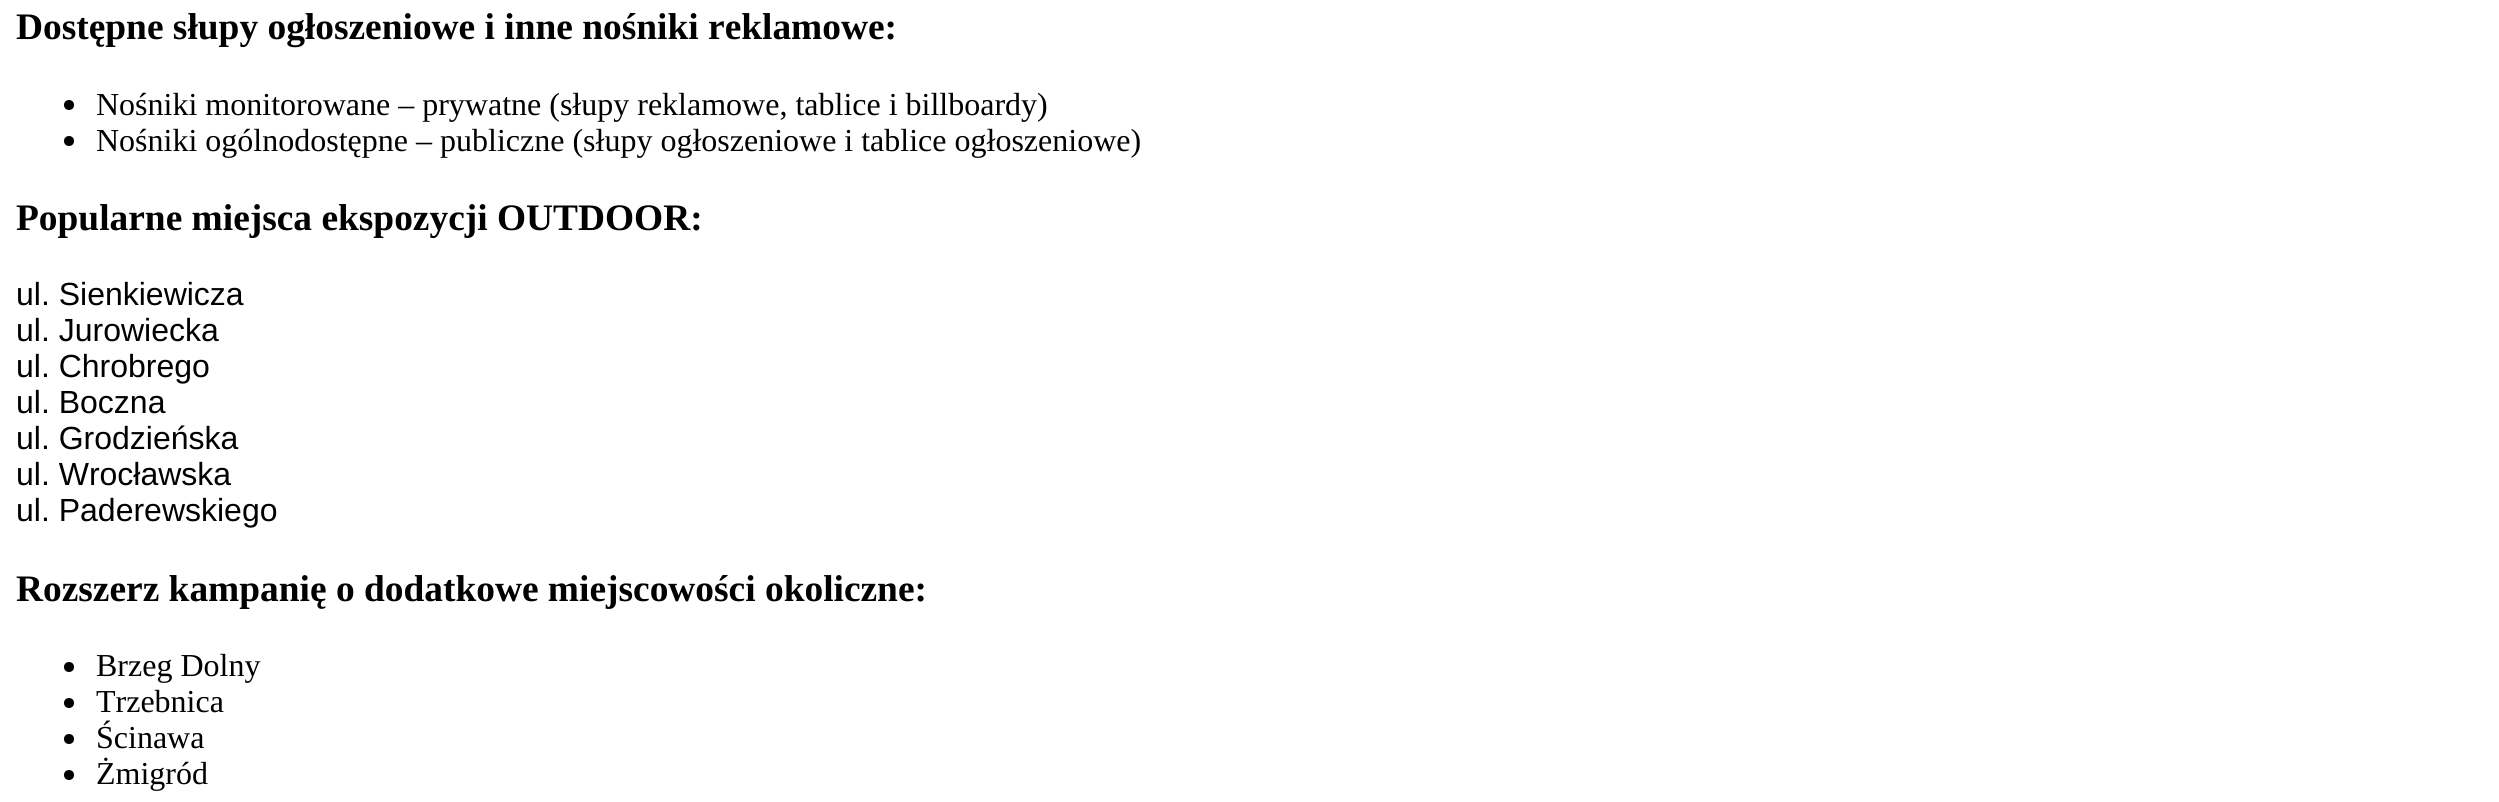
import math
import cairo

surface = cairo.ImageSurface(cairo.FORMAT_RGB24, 2499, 802)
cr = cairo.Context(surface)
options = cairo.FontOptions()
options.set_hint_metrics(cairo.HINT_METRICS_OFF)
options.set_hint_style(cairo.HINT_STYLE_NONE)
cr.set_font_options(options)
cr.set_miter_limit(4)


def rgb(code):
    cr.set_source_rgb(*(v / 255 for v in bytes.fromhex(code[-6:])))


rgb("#ffffff")
cr.paint()
rgb("#000000")
cr.arc(69, 105, 5, 0, 2 * math.pi)
cr.fill()
cr.arc(69, 141, 5, 0, 2 * math.pi)
cr.fill()
cr.arc(69, 667, 5, 0, 2 * math.pi)
cr.fill()
cr.arc(69, 703, 5, 0, 2 * math.pi)
cr.fill()
cr.arc(69, 739, 5, 0, 2 * math.pi)
cr.fill()
cr.arc(69, 775, 5, 0, 2 * math.pi)
cr.fill()
cr.select_font_face("Liberation Serif", cairo.FONT_SLANT_NORMAL, cairo.FONT_WEIGHT_BOLD)
cr.set_font_size(37.4)
cr.move_to(16, 39)
cr.show_text("Dostępne słupy ogłoszeniowe i inne nośniki reklamowe:")
cr.select_font_face("Liberation Serif")
cr.set_font_size(32)
cr.move_to(96, 115)
cr.show_text("Nośniki monitorowane – prywatne (słupy reklamowe, tablice i billboardy)")
cr.move_to(96, 151)
cr.show_text("Nośniki ogólnodostępne – publiczne (słupy ogłoszeniowe i tablice ogłoszeniowe)")
cr.select_font_face("Liberation Serif", cairo.FONT_SLANT_NORMAL, cairo.FONT_WEIGHT_BOLD)
cr.set_font_size(37.4)
cr.move_to(16, 230)
cr.show_text("Popularne miejsca ekspozycji OUTDOOR:")
cr.select_font_face("Liberation Sans")
cr.set_font_size(32)
for x, y, s in [
    (16, 305, "ul. Sienkiewicza"),
    (16, 341, "ul. Jurowiecka"),
    (16, 377, "ul. Chrobrego"),
    (16, 413, "ul. Boczna"),
    (16, 449, "ul. Grodzieńska"),
    (16, 485, "ul. Wrocławska"),
    (16, 521, "ul. Paderewskiego"),
]:
    cr.move_to(x, y)
    cr.show_text(s)
cr.select_font_face("Liberation Serif", cairo.FONT_SLANT_NORMAL, cairo.FONT_WEIGHT_BOLD)
cr.set_font_size(37.4)
cr.move_to(16, 601)
cr.show_text("Rozszerz kampanię o dodatkowe miejscowości okoliczne:")
cr.select_font_face("Liberation Serif")
cr.set_font_size(32)
for x, y, s in [
    (96, 676, "Brzeg Dolny"),
    (96, 712, "Trzebnica"),
    (96, 748, "Ścinawa"),
    (96, 784, "Żmigród"),
]:
    cr.move_to(x, y)
    cr.show_text(s)
surface.write_to_png("page.png")
